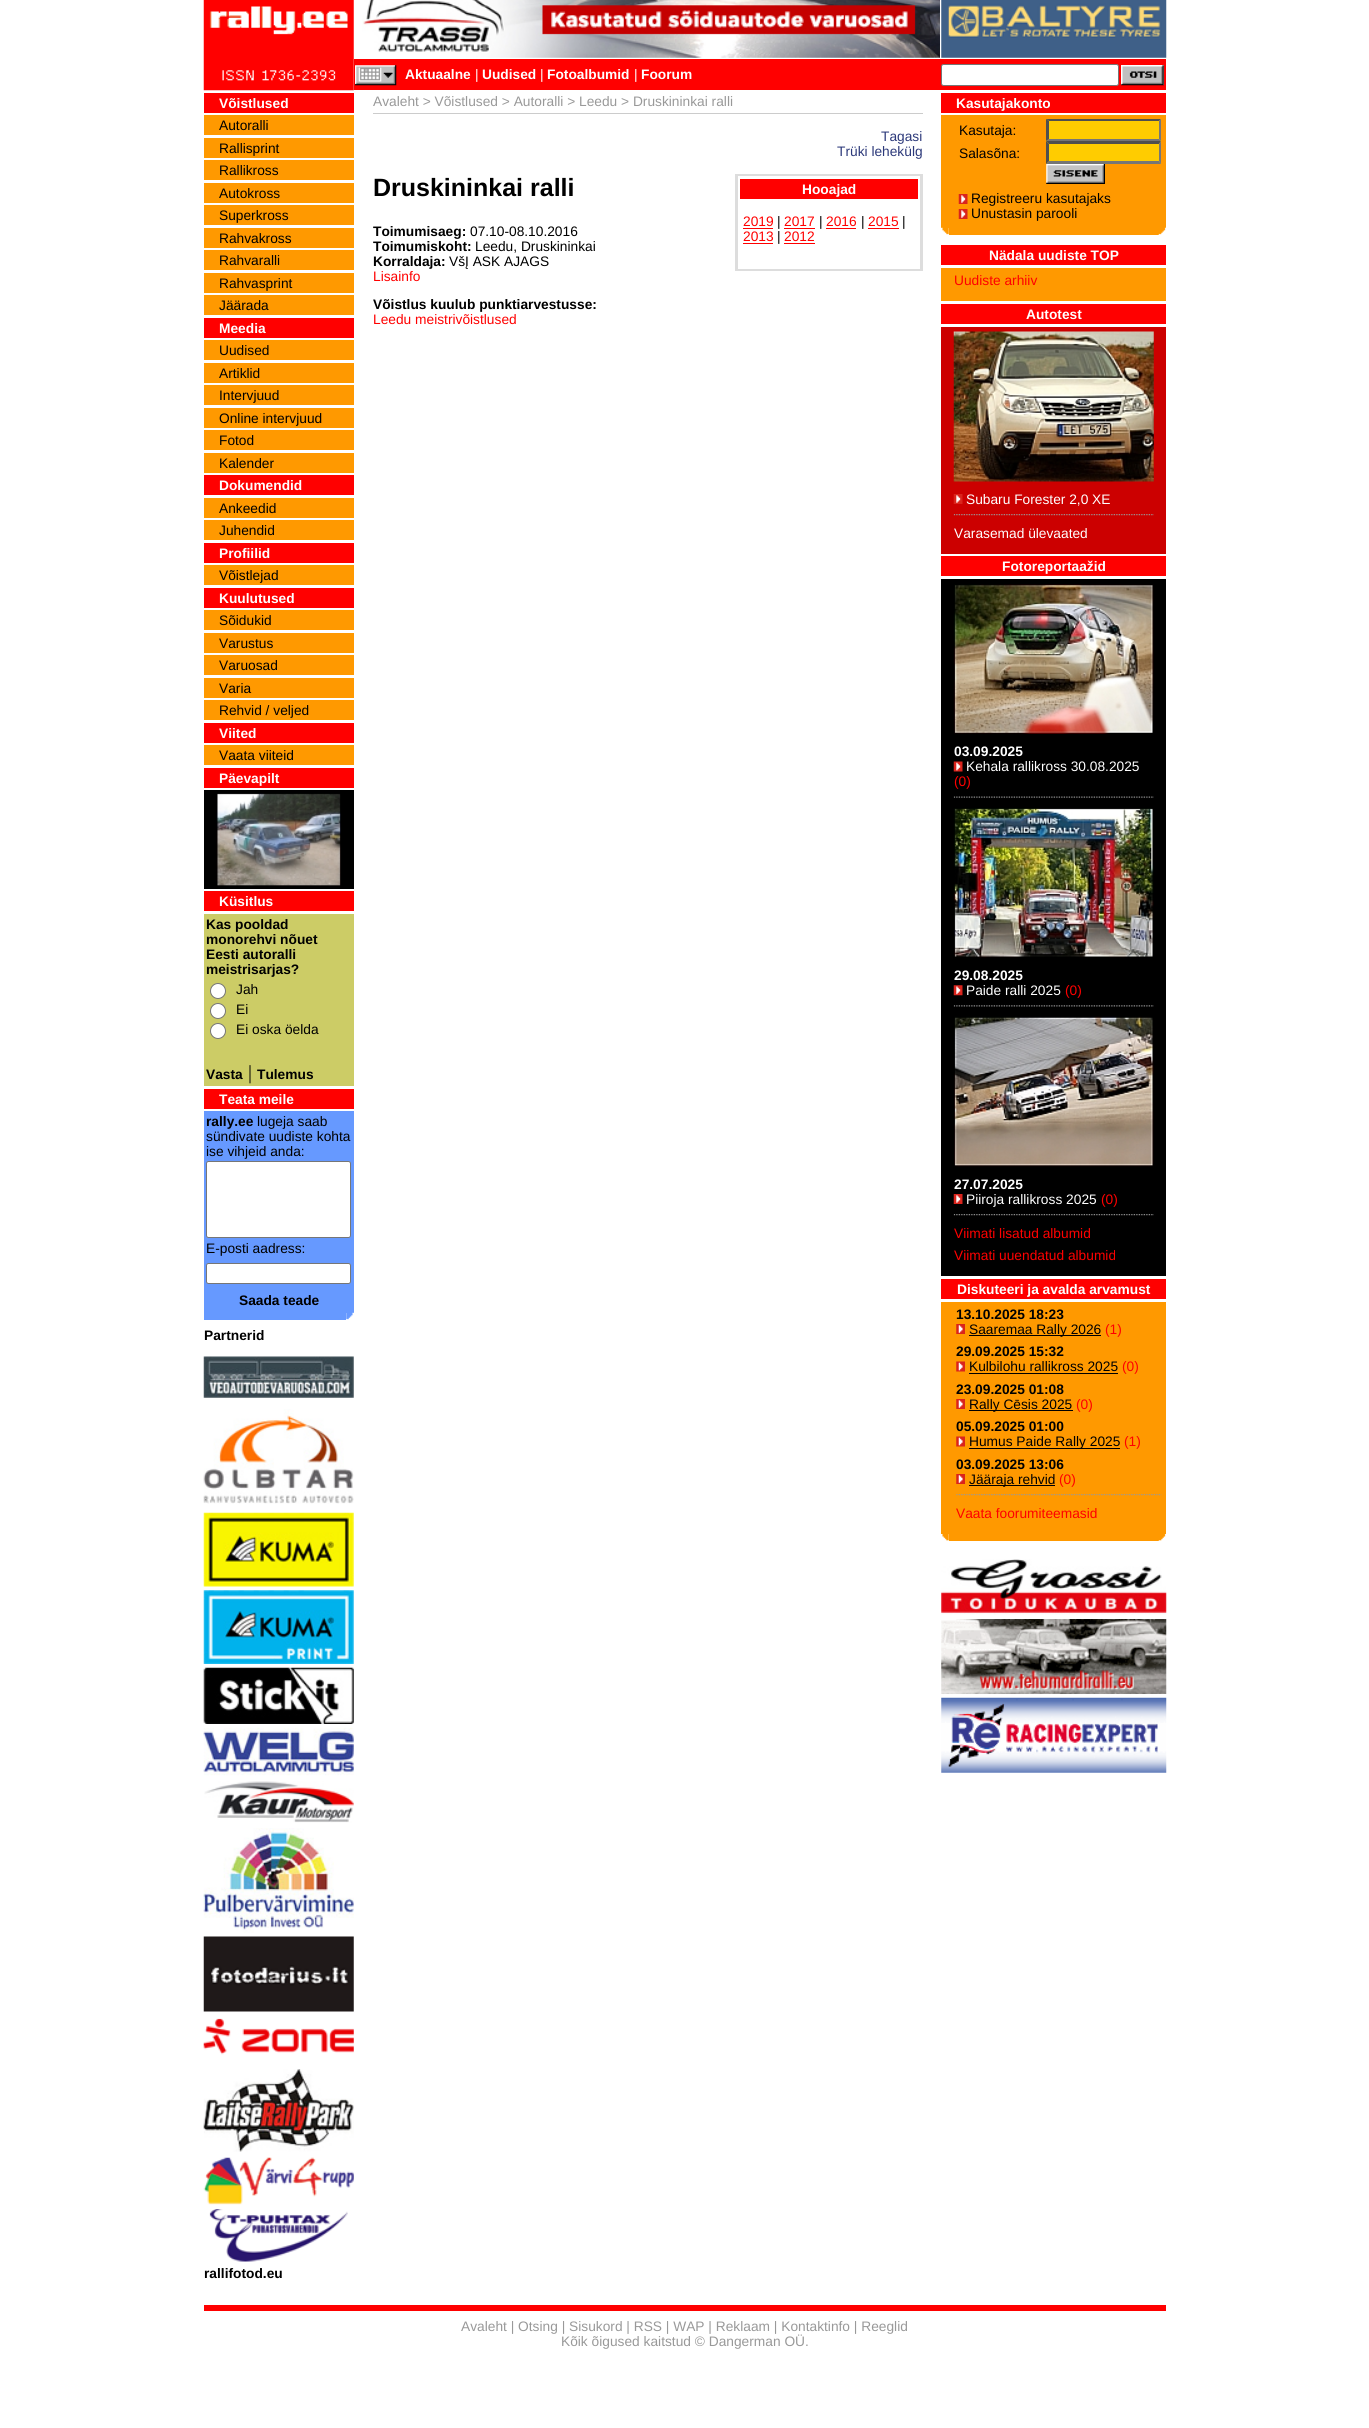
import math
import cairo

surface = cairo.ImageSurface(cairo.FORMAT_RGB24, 1369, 2428)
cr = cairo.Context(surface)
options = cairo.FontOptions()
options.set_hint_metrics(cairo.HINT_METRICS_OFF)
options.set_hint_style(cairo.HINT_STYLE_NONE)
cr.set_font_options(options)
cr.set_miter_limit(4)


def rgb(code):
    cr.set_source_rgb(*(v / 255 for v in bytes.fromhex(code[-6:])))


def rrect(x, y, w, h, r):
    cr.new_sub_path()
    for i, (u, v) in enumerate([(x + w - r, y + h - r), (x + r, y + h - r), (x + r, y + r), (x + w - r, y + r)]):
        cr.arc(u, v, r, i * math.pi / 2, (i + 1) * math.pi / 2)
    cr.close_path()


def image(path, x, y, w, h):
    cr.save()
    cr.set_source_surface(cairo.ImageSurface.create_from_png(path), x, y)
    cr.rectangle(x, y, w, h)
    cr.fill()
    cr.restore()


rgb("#ffffff")
cr.paint()
image("img/1.png", 203, 0, 151, 91)
image("img/2.png", 362, 0, 578, 58)
image("img/3.png", 941, 0, 226, 58)
rgb("#ff0000")
cr.rectangle(354, 59, 812, 31)
cr.fill()
image("img/4.png", 355, 65, 42, 21)
rgb("#ffffff")
rrect(941.5, 64.5, 177, 21, 2)
cr.fill_preserve()
rgb("#767676")
cr.set_line_width(1)
cr.stroke()
rgb("#ffffff")
cr.rectangle(1121, 65, 43, 20)
cr.fill()
image("img/5.png", 1121, 65, 43, 21)
for x, y, w, h, color in [
    (204, 93, 150, 20, "#ff0000"),
    (204, 115, 150, 20, "#ff9900"),
    (204, 138, 150, 20, "#ff9900"),
    (204, 160, 150, 20, "#ff9900"),
    (204, 183, 150, 20, "#ff9900"),
    (204, 205, 150, 20, "#ff9900"),
    (204, 228, 150, 20, "#ff9900"),
    (204, 250, 150, 20, "#ff9900"),
    (204, 273, 150, 20, "#ff9900"),
    (204, 295, 150, 20, "#ff9900"),
    (204, 318, 150, 20, "#ff0000"),
    (204, 340, 150, 20, "#ff9900"),
    (204, 363, 150, 20, "#ff9900"),
    (204, 385, 150, 20, "#ff9900"),
    (204, 408, 150, 20, "#ff9900"),
    (204, 430, 150, 20, "#ff9900"),
    (204, 453, 150, 20, "#ff9900"),
    (204, 475, 150, 20, "#ff0000"),
    (204, 498, 150, 20, "#ff9900"),
    (204, 520, 150, 20, "#ff9900"),
    (204, 543, 150, 20, "#ff0000"),
    (204, 565, 150, 20, "#ff9900"),
    (204, 588, 150, 20, "#ff0000"),
    (204, 610, 150, 20, "#ff9900"),
    (204, 633, 150, 20, "#ff9900"),
    (204, 655, 150, 20, "#ff9900"),
    (204, 678, 150, 20, "#ff9900"),
    (204, 700, 150, 20, "#ff9900"),
    (204, 723, 150, 20, "#ff0000"),
    (204, 745, 150, 20, "#ff9900"),
    (204, 768, 150, 20, "#ff0000"),
    (204, 790, 150, 99, "#000000"),
]:
    rgb(color)
    cr.rectangle(x, y, w, h)
    cr.fill()
image("img/6.png", 216, 793, 125, 93)
rgb("#ff0000")
cr.rectangle(204, 891, 150, 20)
cr.fill()
rgb("#cccc66")
cr.rectangle(204, 914, 150, 172)
cr.fill()
rgb("#ffffff")
cr.arc(218, 991, 7.5, 0, 2 * math.pi)
cr.fill_preserve()
rgb("#767676")
cr.stroke()
rgb("#ffffff")
cr.arc(218, 1011, 7.5, 0, 2 * math.pi)
cr.fill_preserve()
rgb("#767676")
cr.stroke()
rgb("#ffffff")
cr.arc(218, 1031, 7.5, 0, 2 * math.pi)
cr.fill_preserve()
rgb("#767676")
cr.stroke()
rgb("#ff0000")
cr.rectangle(204, 1089, 150, 20)
cr.fill()
rgb("#6699ff")
cr.rectangle(204, 1111, 150, 202)
cr.fill()
rgb("#ffffff")
rrect(206.5, 1161.5, 144, 76, 2)
cr.fill_preserve()
rgb("#767676")
cr.stroke()
rgb("#ffffff")
rrect(206.5, 1263.5, 144, 20, 2)
cr.fill_preserve()
rgb("#767676")
cr.stroke()
rgb("#6699ff")
cr.rectangle(204, 1313, 142, 7)
cr.fill()
image("img/7.png", 346, 1312, 8, 8)
image("img/8.png", 203, 1356, 151, 42)
image("img/9.png", 203, 1409, 151, 95)
image("img/10.png", 203, 1512, 151, 75)
image("img/11.png", 203, 1590, 151, 74)
image("img/12.png", 203, 1667, 151, 57)
image("img/13.png", 203, 1727, 151, 49)
image("img/14.png", 204, 1781, 150, 42)
image("img/15.png", 203, 1828, 151, 105)
image("img/16.png", 203, 1936, 151, 76)
image("img/17.png", 203, 2018, 151, 37)
image("img/18.png", 203, 2069, 151, 83)
image("img/19.png", 203, 2157, 151, 48)
image("img/20.png", 209, 2209, 139, 53)
for x, y, w, h, color in [
    (373, 113, 550, 1, "#cccccc"),
    (735, 174, 188, 97, "#dddddd"),
    (738, 176, 182, 93, "#ffffff"),
    (740, 179, 178, 20, "#ff0000"),
    (743, 228, 30, 1, "#ff0000"),
    (784, 228, 31, 1, "#ff0000"),
    (826, 228, 30, 1, "#ff0000"),
    (868, 228, 31, 1, "#ff0000"),
    (743, 243, 30, 1, "#ff0000"),
    (784, 243, 31, 1, "#ff0000"),
    (941, 93, 225, 20, "#ff0000"),
    (941, 115, 225, 113, "#ff9900"),
    (1046, 119, 115, 45, "#ffcc00"),
]:
    rgb(color)
    cr.rectangle(x, y, w, h)
    cr.fill()
rgb("#4f4f4f")
cr.new_path()
cr.move_to(1046, 119)
cr.line_to(1161, 119)
cr.line_to(1159, 121)
cr.line_to(1049, 121)
cr.close_path()
cr.fill()
rgb("#767676")
cr.new_path()
cr.move_to(1161, 119)
cr.line_to(1161, 141)
cr.line_to(1159, 139)
cr.line_to(1159, 121)
cr.close_path()
cr.fill()
cr.new_path()
cr.move_to(1161, 141)
cr.line_to(1046, 141)
cr.line_to(1049, 139)
cr.line_to(1159, 139)
cr.close_path()
cr.fill()
rgb("#4f4f4f")
cr.new_path()
cr.move_to(1046, 141)
cr.line_to(1046, 119)
cr.line_to(1049, 121)
cr.line_to(1049, 139)
cr.close_path()
cr.fill()
cr.new_path()
cr.move_to(1046, 141)
cr.line_to(1161, 141)
cr.line_to(1159, 144)
cr.line_to(1049, 144)
cr.close_path()
cr.fill()
rgb("#767676")
cr.new_path()
cr.move_to(1161, 141)
cr.line_to(1161, 164)
cr.line_to(1159, 161)
cr.line_to(1159, 144)
cr.close_path()
cr.fill()
cr.new_path()
cr.move_to(1161, 164)
cr.line_to(1046, 164)
cr.line_to(1049, 161)
cr.line_to(1159, 161)
cr.close_path()
cr.fill()
rgb("#4f4f4f")
cr.new_path()
cr.move_to(1046, 164)
cr.line_to(1046, 141)
cr.line_to(1049, 144)
cr.line_to(1049, 161)
cr.close_path()
cr.fill()
image("img/21.png", 1046, 164, 59, 20)
image("img/22.png", 958, 194, 10, 10)
image("img/22.png", 958, 209, 10, 10)
image("img/23.png", 941, 227, 8, 8)
rgb("#ff9900")
cr.rectangle(949, 228, 210, 7)
cr.fill()
image("img/24.png", 1158, 227, 8, 8)
for x, y, w, h, color in [
    (941, 268, 225, 33, "#ff9900"),
    (941, 245, 225, 20, "#ff0000"),
    (941, 327, 225, 227, "#cc0000"),
    (941, 304, 225, 20, "#ff0000"),
]:
    rgb(color)
    cr.rectangle(x, y, w, h)
    cr.fill()
image("img/25.png", 953, 331, 201, 151)
image("img/26.png", 953, 494, 10, 10)
image("img/27.png", 953, 514, 201, 2)
rgb("#000000")
cr.rectangle(941, 579, 225, 697)
cr.fill()
rgb("#ff0000")
cr.rectangle(941, 556, 225, 20)
cr.fill()
image("img/28.png", 953, 584, 201, 150)
image("img/29.png", 953, 761, 10, 11)
image("img/30.png", 953, 796, 201, 2)
image("img/31.png", 953, 808, 201, 150)
image("img/32.png", 953, 985, 10, 11)
image("img/33.png", 953, 1005, 201, 2)
image("img/34.png", 954, 1016, 200, 151)
image("img/35.png", 953, 1194, 10, 10)
image("img/36.png", 953, 1214, 201, 2)
rgb("#ff9900")
cr.rectangle(941, 1302, 225, 232)
cr.fill()
rgb("#ff0000")
cr.rectangle(941, 1279, 225, 20)
cr.fill()
image("img/37.png", 956, 1324, 9, 10)
rgb("#000000")
cr.rectangle(969, 1335, 132, 1)
cr.fill()
image("img/38.png", 956, 1361, 9, 11)
cr.rectangle(969, 1373, 149, 1)
cr.fill()
image("img/37.png", 956, 1399, 9, 10)
cr.rectangle(969, 1410, 104, 1)
cr.fill()
image("img/38.png", 956, 1436, 9, 11)
cr.rectangle(969, 1448, 151, 1)
cr.fill()
image("img/37.png", 956, 1474, 9, 10)
cr.rectangle(969, 1485, 86, 1)
cr.fill()
image("img/39.png", 956, 1494, 206, 2)
image("img/40.png", 942, 1534, 7, 7)
rgb("#ff9900")
cr.rectangle(949, 1534, 210, 7)
cr.fill()
image("img/41.png", 1158, 1534, 8, 7)
image("img/42.png", 941, 1559, 226, 56)
image("img/43.png", 941, 1619, 226, 75)
image("img/44.png", 941, 1697, 226, 76)
rgb("#ff0000")
cr.rectangle(204, 2305, 962, 6)
cr.fill()
cr.select_font_face("Liberation Sans", cairo.FONT_SLANT_NORMAL, cairo.FONT_WEIGHT_BOLD)
cr.set_font_size(13.75)
rgb("#ffffff")
cr.move_to(405, 79)
cr.show_text("Aktuaalne")
cr.select_font_face("Liberation Sans")
cr.move_to(475, 79)
cr.show_text("|")
cr.select_font_face("Liberation Sans", cairo.FONT_SLANT_NORMAL, cairo.FONT_WEIGHT_BOLD)
cr.move_to(482, 79)
cr.show_text("Uudised")
cr.select_font_face("Liberation Sans")
cr.move_to(540, 79)
cr.show_text("|")
cr.select_font_face("Liberation Sans", cairo.FONT_SLANT_NORMAL, cairo.FONT_WEIGHT_BOLD)
cr.move_to(547, 79)
cr.show_text("Fotoalbumid")
cr.select_font_face("Liberation Sans")
cr.move_to(634, 79)
cr.show_text("|")
cr.select_font_face("Liberation Sans", cairo.FONT_SLANT_NORMAL, cairo.FONT_WEIGHT_BOLD)
cr.move_to(641, 79)
cr.show_text("Foorum")
cr.move_to(219, 108)
cr.show_text("Võistlused")
cr.select_font_face("Liberation Sans")
rgb("#000000")
for x, y, s in [
    (219, 130, "Autoralli"),
    (219, 153, "Rallisprint"),
    (219, 175, "Rallikross"),
    (219, 198, "Autokross"),
    (219, 220, "Superkross"),
    (219, 243, "Rahvakross"),
    (219, 265, "Rahvaralli"),
    (219, 288, "Rahvasprint"),
    (219, 310, "Jäärada"),
]:
    cr.move_to(x, y)
    cr.show_text(s)
cr.select_font_face("Liberation Sans", cairo.FONT_SLANT_NORMAL, cairo.FONT_WEIGHT_BOLD)
rgb("#ffffff")
cr.move_to(219, 333)
cr.show_text("Meedia")
cr.select_font_face("Liberation Sans")
rgb("#000000")
for x, y, s in [
    (219, 355, "Uudised"),
    (219, 378, "Artiklid"),
    (219, 400, "Intervjuud"),
    (219, 423, "Online intervjuud"),
    (219, 445, "Fotod"),
    (219, 468, "Kalender"),
]:
    cr.move_to(x, y)
    cr.show_text(s)
cr.select_font_face("Liberation Sans", cairo.FONT_SLANT_NORMAL, cairo.FONT_WEIGHT_BOLD)
rgb("#ffffff")
cr.move_to(219, 490)
cr.show_text("Dokumendid")
cr.select_font_face("Liberation Sans")
rgb("#000000")
cr.move_to(219, 513)
cr.show_text("Ankeedid")
cr.move_to(219, 535)
cr.show_text("Juhendid")
cr.select_font_face("Liberation Sans", cairo.FONT_SLANT_NORMAL, cairo.FONT_WEIGHT_BOLD)
rgb("#ffffff")
cr.move_to(219, 558)
cr.show_text("Profiilid")
cr.select_font_face("Liberation Sans")
rgb("#000000")
cr.move_to(219, 580)
cr.show_text("Võistlejad")
cr.select_font_face("Liberation Sans", cairo.FONT_SLANT_NORMAL, cairo.FONT_WEIGHT_BOLD)
rgb("#ffffff")
cr.move_to(219, 603)
cr.show_text("Kuulutused")
cr.select_font_face("Liberation Sans")
rgb("#000000")
for x, y, s in [
    (219, 625, "Sõidukid"),
    (219, 648, "Varustus"),
    (219, 670, "Varuosad"),
    (219, 693, "Varia"),
    (219, 715, "Rehvid / veljed"),
]:
    cr.move_to(x, y)
    cr.show_text(s)
cr.select_font_face("Liberation Sans", cairo.FONT_SLANT_NORMAL, cairo.FONT_WEIGHT_BOLD)
rgb("#ffffff")
cr.move_to(219, 738)
cr.show_text("Viited")
cr.select_font_face("Liberation Sans")
rgb("#000000")
cr.move_to(219, 760)
cr.show_text("Vaata viiteid")
cr.select_font_face("Liberation Sans", cairo.FONT_SLANT_NORMAL, cairo.FONT_WEIGHT_BOLD)
rgb("#ffffff")
cr.move_to(219, 783)
cr.show_text("Päevapilt")
cr.move_to(219, 906)
cr.show_text("Küsitlus")
rgb("#000000")
for x, y, s in [
    (206, 929, "Kas pooldad"),
    (206, 944, "monorehvi nõuet"),
    (206, 959, "Eesti autoralli"),
    (206, 974, "meistrisarjas?"),
]:
    cr.move_to(x, y)
    cr.show_text(s)
cr.select_font_face("Liberation Sans")
for x, y, s in [
    (236, 994, "Jah"),
    (236, 1014, "Ei"),
    (236, 1034, "Ei oska öelda"),
]:
    cr.move_to(x, y)
    cr.show_text(s)
cr.select_font_face("Liberation Sans", cairo.FONT_SLANT_NORMAL, cairo.FONT_WEIGHT_BOLD)
cr.move_to(206, 1079)
cr.show_text("Vasta")
cr.select_font_face("Liberation Serif")
cr.set_font_size(20)
cr.move_to(248, 1079)
cr.show_text("|")
cr.select_font_face("Liberation Sans", cairo.FONT_SLANT_NORMAL, cairo.FONT_WEIGHT_BOLD)
cr.set_font_size(13.75)
cr.move_to(257, 1079)
cr.show_text("Tulemus")
rgb("#ffffff")
cr.move_to(219, 1104)
cr.show_text("Teata meile")
rgb("#000000")
cr.move_to(206, 1126)
cr.show_text("rally.ee")
cr.select_font_face("Liberation Sans")
for x, y, s in [
    (257, 1126, "lugeja saab"),
    (206, 1141, "sündivate uudiste kohta"),
    (206, 1156, "ise vihjeid anda:"),
    (206, 1253, "E-posti aadress:"),
]:
    cr.move_to(x, y)
    cr.show_text(s)
cr.select_font_face("Liberation Sans", cairo.FONT_SLANT_NORMAL, cairo.FONT_WEIGHT_BOLD)
for x, y, s in [
    (239, 1305, "Saada teade"),
    (204, 1340, "Partnerid"),
    (204, 2278, "rallifotod.eu"),
]:
    cr.move_to(x, y)
    cr.show_text(s)
cr.select_font_face("Liberation Sans")
rgb("#999999")
cr.move_to(373, 106)
cr.show_text("Avaleht > Võistlused > Autoralli > Leedu > Druskininkai ralli")
rgb("#2c397a")
cr.move_to(881, 141)
cr.show_text("Tagasi")
cr.move_to(837, 156)
cr.show_text("Trüki lehekülg")
cr.select_font_face("Liberation Sans", cairo.FONT_SLANT_NORMAL, cairo.FONT_WEIGHT_BOLD)
cr.set_font_size(25)
rgb("#000000")
cr.move_to(373, 196)
cr.show_text("Druskininkai ralli")
cr.set_font_size(13.75)
rgb("#ffffff")
cr.move_to(802, 194)
cr.show_text("Hooajad")
cr.select_font_face("Liberation Sans")
rgb("#ff0000")
cr.move_to(743, 226)
cr.show_text("2019")
rgb("#000000")
cr.move_to(777, 226)
cr.show_text("|")
rgb("#ff0000")
cr.move_to(784, 226)
cr.show_text("2017")
rgb("#000000")
cr.move_to(819, 226)
cr.show_text("|")
rgb("#ff0000")
cr.move_to(826, 226)
cr.show_text("2016")
rgb("#000000")
cr.move_to(861, 226)
cr.show_text("|")
rgb("#ff0000")
cr.move_to(868, 226)
cr.show_text("2015")
rgb("#000000")
cr.move_to(902, 226)
cr.show_text("|")
rgb("#ff0000")
cr.move_to(743, 241)
cr.show_text("2013")
rgb("#000000")
cr.move_to(777, 241)
cr.show_text("|")
rgb("#ff0000")
cr.move_to(784, 241)
cr.show_text("2012")
cr.select_font_face("Liberation Sans", cairo.FONT_SLANT_NORMAL, cairo.FONT_WEIGHT_BOLD)
rgb("#000000")
cr.move_to(373, 236)
cr.show_text("Toimumisaeg:")
cr.select_font_face("Liberation Sans")
cr.move_to(470, 236)
cr.show_text("07.10-08.10.2016")
cr.select_font_face("Liberation Sans", cairo.FONT_SLANT_NORMAL, cairo.FONT_WEIGHT_BOLD)
cr.move_to(373, 251)
cr.show_text("Toimumiskoht:")
cr.select_font_face("Liberation Sans")
cr.move_to(475, 251)
cr.show_text("Leedu, Druskininkai")
cr.select_font_face("Liberation Sans", cairo.FONT_SLANT_NORMAL, cairo.FONT_WEIGHT_BOLD)
cr.move_to(373, 266)
cr.show_text("Korraldaja:")
cr.select_font_face("Liberation Sans")
cr.move_to(449, 266)
cr.show_text("VšĮ ASK AJAGS")
rgb("#ff0000")
cr.move_to(373, 281)
cr.show_text("Lisainfo")
cr.select_font_face("Liberation Sans", cairo.FONT_SLANT_NORMAL, cairo.FONT_WEIGHT_BOLD)
rgb("#000000")
cr.move_to(373, 309)
cr.show_text("Võistlus kuulub punktiarvestusse:")
cr.select_font_face("Liberation Sans")
rgb("#ff0000")
cr.move_to(373, 324)
cr.show_text("Leedu meistrivõistlused")
cr.select_font_face("Liberation Sans", cairo.FONT_SLANT_NORMAL, cairo.FONT_WEIGHT_BOLD)
rgb("#ffffff")
cr.move_to(956, 108)
cr.show_text("Kasutajakonto")
cr.select_font_face("Liberation Sans")
rgb("#000000")
for x, y, s in [
    (959, 135, "Kasutaja:"),
    (959, 158, "Salasõna:"),
    (971, 203, "Registreeru kasutajaks"),
    (971, 218, "Unustasin parooli"),
]:
    cr.move_to(x, y)
    cr.show_text(s)
cr.select_font_face("Liberation Sans", cairo.FONT_SLANT_NORMAL, cairo.FONT_WEIGHT_BOLD)
rgb("#ffffff")
cr.move_to(989, 260)
cr.show_text("Nädala uudiste TOP")
cr.select_font_face("Liberation Sans")
rgb("#ff0000")
cr.move_to(954, 285)
cr.show_text("Uudiste arhiiv")
cr.select_font_face("Liberation Sans", cairo.FONT_SLANT_NORMAL, cairo.FONT_WEIGHT_BOLD)
rgb("#ffffff")
cr.move_to(1026, 319)
cr.show_text("Autotest")
cr.select_font_face("Liberation Sans")
cr.move_to(966, 504)
cr.show_text("Subaru Forester 2,0 XE")
cr.move_to(954, 538)
cr.show_text("Varasemad ülevaated")
cr.select_font_face("Liberation Sans", cairo.FONT_SLANT_NORMAL, cairo.FONT_WEIGHT_BOLD)
cr.move_to(1002, 571)
cr.show_text("Fotoreportaažid")
cr.move_to(954, 756)
cr.show_text("03.09.2025")
cr.select_font_face("Liberation Sans")
cr.move_to(966, 771)
cr.show_text("Kehala rallikross 30.08.2025")
rgb("#ff0000")
cr.move_to(954, 786)
cr.show_text("(0)")
cr.select_font_face("Liberation Sans", cairo.FONT_SLANT_NORMAL, cairo.FONT_WEIGHT_BOLD)
rgb("#ffffff")
cr.move_to(954, 980)
cr.show_text("29.08.2025")
cr.select_font_face("Liberation Sans")
cr.move_to(966, 995)
cr.show_text("Paide ralli 2025")
rgb("#ff0000")
cr.move_to(1065, 995)
cr.show_text("(0)")
cr.select_font_face("Liberation Sans", cairo.FONT_SLANT_NORMAL, cairo.FONT_WEIGHT_BOLD)
rgb("#ffffff")
cr.move_to(954, 1189)
cr.show_text("27.07.2025")
cr.select_font_face("Liberation Sans")
cr.move_to(966, 1204)
cr.show_text("Piiroja rallikross 2025")
rgb("#ff0000")
for x, y, s in [
    (1101, 1204, "(0)"),
    (954, 1238, "Viimati lisatud albumid"),
    (954, 1260, "Viimati uuendatud albumid"),
]:
    cr.move_to(x, y)
    cr.show_text(s)
cr.select_font_face("Liberation Sans", cairo.FONT_SLANT_NORMAL, cairo.FONT_WEIGHT_BOLD)
rgb("#ffffff")
cr.move_to(957, 1294)
cr.show_text("Diskuteeri ja avalda arvamust")
rgb("#000000")
cr.move_to(956, 1319)
cr.show_text("13.10.2025 18:23")
cr.select_font_face("Liberation Sans")
cr.move_to(969, 1334)
cr.show_text("Saaremaa Rally 2026")
rgb("#ff0000")
cr.move_to(1105, 1334)
cr.show_text("(1)")
cr.select_font_face("Liberation Sans", cairo.FONT_SLANT_NORMAL, cairo.FONT_WEIGHT_BOLD)
rgb("#000000")
cr.move_to(956, 1356)
cr.show_text("29.09.2025 15:32")
cr.select_font_face("Liberation Sans")
cr.move_to(969, 1371)
cr.show_text("Kulbilohu rallikross 2025")
rgb("#ff0000")
cr.move_to(1122, 1371)
cr.show_text("(0)")
cr.select_font_face("Liberation Sans", cairo.FONT_SLANT_NORMAL, cairo.FONT_WEIGHT_BOLD)
rgb("#000000")
cr.move_to(956, 1394)
cr.show_text("23.09.2025 01:08")
cr.select_font_face("Liberation Sans")
cr.move_to(969, 1409)
cr.show_text("Rally Cēsis 2025")
rgb("#ff0000")
cr.move_to(1076, 1409)
cr.show_text("(0)")
cr.select_font_face("Liberation Sans", cairo.FONT_SLANT_NORMAL, cairo.FONT_WEIGHT_BOLD)
rgb("#000000")
cr.move_to(956, 1431)
cr.show_text("05.09.2025 01:00")
cr.select_font_face("Liberation Sans")
cr.move_to(969, 1446)
cr.show_text("Humus Paide Rally 2025")
rgb("#ff0000")
cr.move_to(1124, 1446)
cr.show_text("(1)")
cr.select_font_face("Liberation Sans", cairo.FONT_SLANT_NORMAL, cairo.FONT_WEIGHT_BOLD)
rgb("#000000")
cr.move_to(956, 1469)
cr.show_text("03.09.2025 13:06")
cr.select_font_face("Liberation Sans")
cr.move_to(969, 1484)
cr.show_text("Jääraja rehvid")
rgb("#ff0000")
cr.move_to(1059, 1484)
cr.show_text("(0)")
cr.move_to(956, 1518)
cr.show_text("Vaata foorumiteemasid")
rgb("#999999")
cr.move_to(461, 2331)
cr.show_text("Avaleht | Otsing | Sisukord | RSS | WAP | Reklaam | Kontaktinfo | Reeglid")
cr.move_to(561, 2346)
cr.show_text("Kõik õigused kaitstud © Dangerman OÜ.")
surface.write_to_png("page.png")
